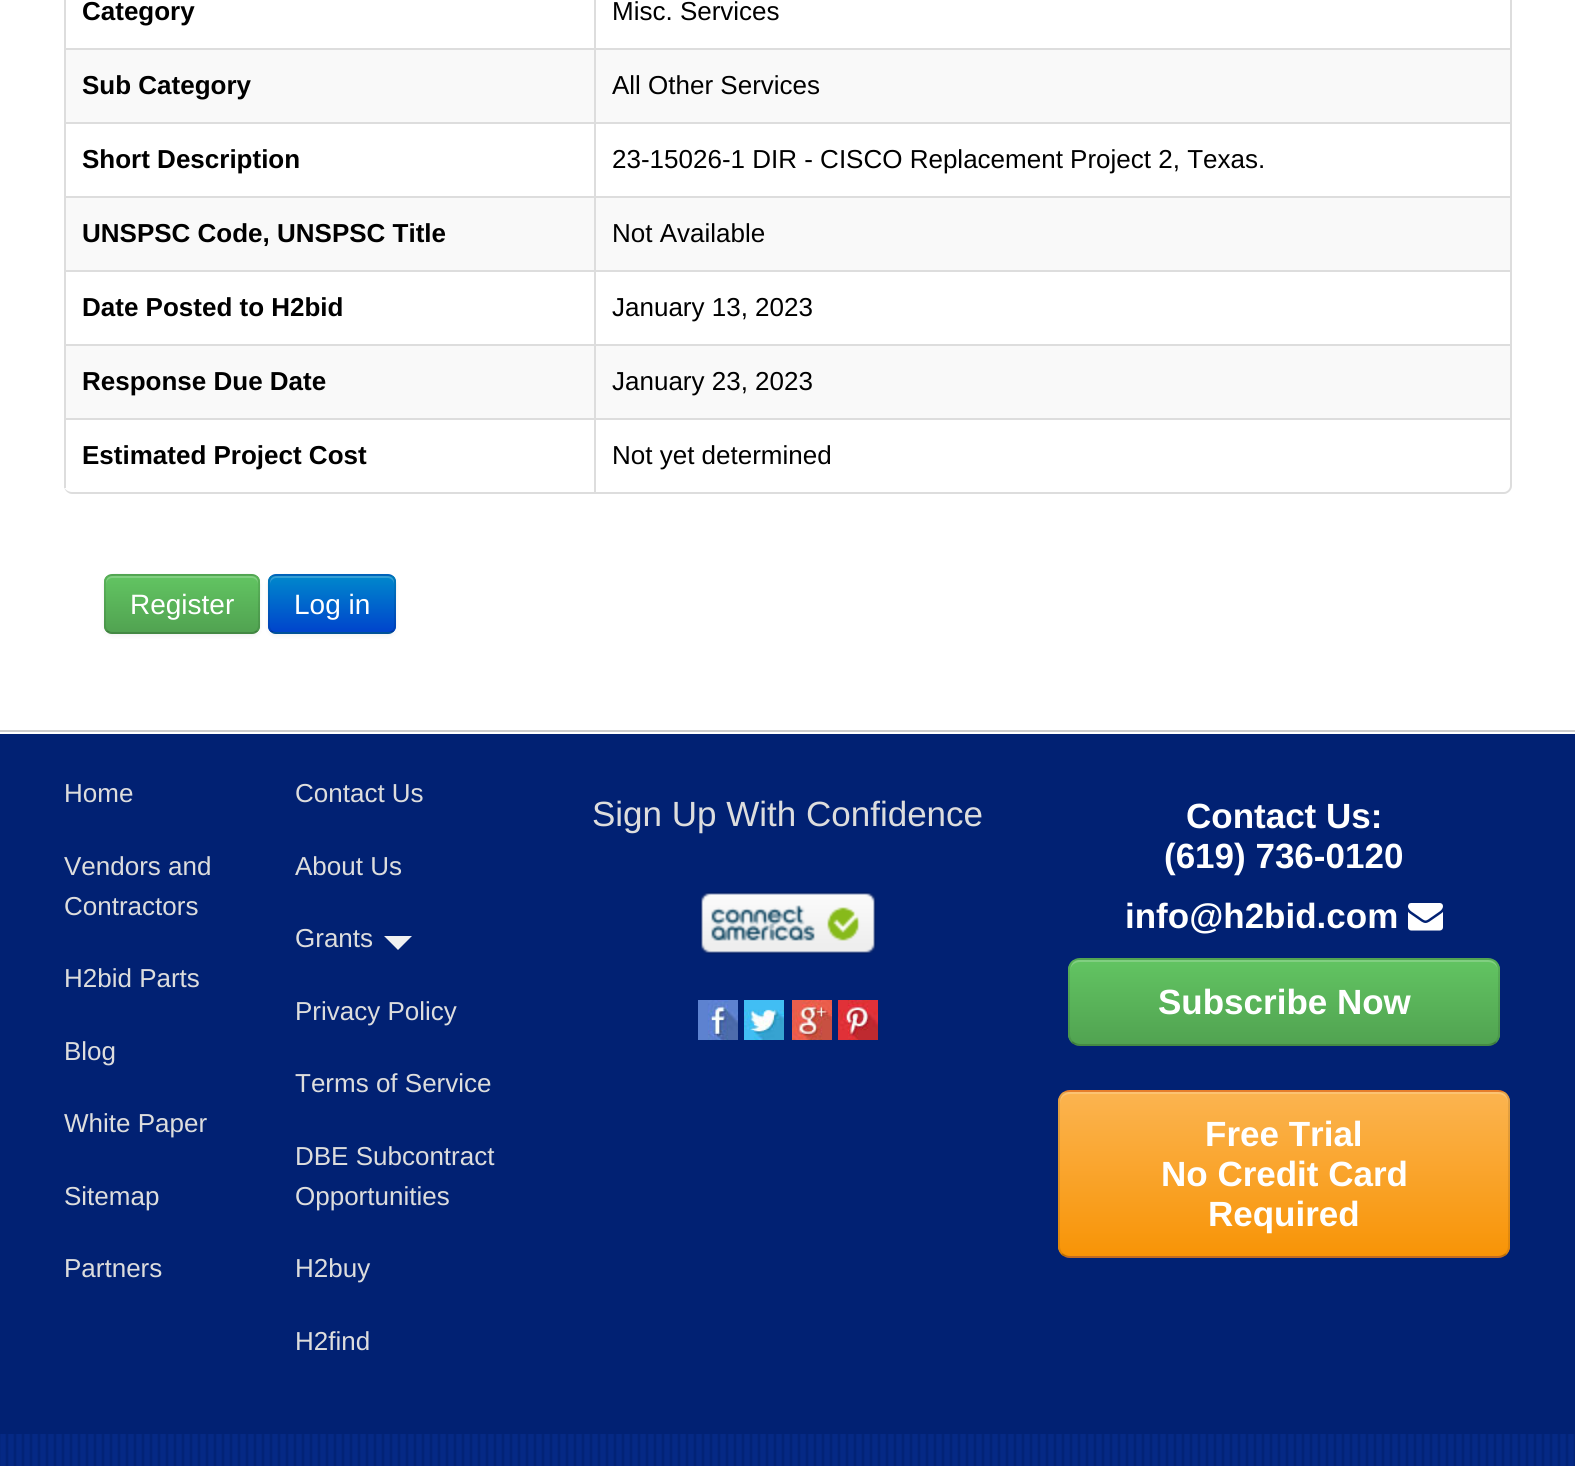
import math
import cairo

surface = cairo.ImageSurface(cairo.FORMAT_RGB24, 1575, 1466)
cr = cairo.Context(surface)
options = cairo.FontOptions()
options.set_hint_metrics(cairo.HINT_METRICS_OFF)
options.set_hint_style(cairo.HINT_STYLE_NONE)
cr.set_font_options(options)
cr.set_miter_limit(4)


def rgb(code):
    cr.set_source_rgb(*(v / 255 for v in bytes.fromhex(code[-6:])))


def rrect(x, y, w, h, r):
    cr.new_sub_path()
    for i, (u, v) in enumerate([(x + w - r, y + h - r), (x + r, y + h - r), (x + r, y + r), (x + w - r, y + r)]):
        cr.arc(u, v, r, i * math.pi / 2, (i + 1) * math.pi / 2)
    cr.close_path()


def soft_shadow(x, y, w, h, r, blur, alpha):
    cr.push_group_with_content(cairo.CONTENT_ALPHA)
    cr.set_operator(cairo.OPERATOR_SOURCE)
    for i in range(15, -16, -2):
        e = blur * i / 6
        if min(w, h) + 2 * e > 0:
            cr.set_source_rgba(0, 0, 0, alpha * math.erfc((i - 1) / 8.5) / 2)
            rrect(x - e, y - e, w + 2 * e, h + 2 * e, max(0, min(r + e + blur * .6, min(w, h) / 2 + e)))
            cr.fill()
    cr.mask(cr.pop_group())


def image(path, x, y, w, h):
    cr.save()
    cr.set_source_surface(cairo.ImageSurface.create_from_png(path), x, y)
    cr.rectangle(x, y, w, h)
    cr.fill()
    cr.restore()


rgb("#ffffff")
cr.paint()
rgb("#dddddd")
cr.set_fill_rule(cairo.FILL_RULE_EVEN_ODD)
cr.new_path()
cr.move_to(72, -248)
cr.line_to(1504, -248)
cr.curve_to(1508, -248, 1512, -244, 1512, -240)
cr.line_to(1512, 486)
cr.curve_to(1512, 490, 1508, 494, 1504, 494)
cr.line_to(72, 494)
cr.curve_to(68, 494, 64, 490, 64, 486)
cr.line_to(64, -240)
cr.curve_to(64, -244, 68, -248, 72, -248)
cr.close_path()
cr.move_to(72, -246)
cr.line_to(1504, -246)
cr.curve_to(1507, -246, 1510, -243, 1510, -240)
cr.line_to(1510, 486)
cr.curve_to(1510, 489, 1507, 492, 1504, 492)
cr.line_to(72, 492)
cr.curve_to(68, 492, 64, 489, 64, 486)
cr.line_to(64, -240)
cr.curve_to(64, -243, 68, -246, 72, -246)
cr.close_path()
cr.fill()
for x, y, w, h, color in [
    (64, 0, 2, 48, "#dddddd"),
    (594, 0, 2, 48, "#dddddd"),
    (66, 50, 528, 72, "#f9f9f9"),
    (64, 48, 1446, 2, "#dddddd"),
    (64, 48, 2, 74, "#dddddd"),
    (596, 50, 914, 72, "#f9f9f9"),
    (594, 48, 2, 74, "#dddddd"),
    (64, 122, 1446, 2, "#dddddd"),
    (64, 122, 2, 74, "#dddddd"),
    (594, 122, 2, 74, "#dddddd"),
    (66, 198, 528, 72, "#f9f9f9"),
    (64, 196, 1446, 2, "#dddddd"),
    (64, 196, 2, 74, "#dddddd"),
    (596, 198, 914, 72, "#f9f9f9"),
    (594, 196, 2, 74, "#dddddd"),
    (64, 270, 1446, 2, "#dddddd"),
    (64, 270, 2, 74, "#dddddd"),
    (594, 270, 2, 74, "#dddddd"),
    (66, 346, 528, 72, "#f9f9f9"),
    (64, 344, 1446, 2, "#dddddd"),
    (64, 344, 2, 74, "#dddddd"),
    (596, 346, 914, 72, "#f9f9f9"),
    (594, 344, 2, 74, "#dddddd"),
    (64, 418, 1446, 2, "#dddddd"),
    (64, 418, 2, 70, "#dddddd"),
    (594, 418, 2, 74, "#dddddd"),
]:
    rgb(color)
    cr.rectangle(x, y, w, h)
    cr.fill()
rgb("#000000")
soft_shadow(104, 576, 156, 60, 8, 2, 0.05)
rgb("#5bb75b")
rrect(104, 574, 156, 60, 8)
cr.fill()
cr.save()
cr.set_fill_rule(cairo.FILL_RULE_WINDING)
rrect(104, 574, 156, 60, 8)
cr.clip()
gradient = cairo.LinearGradient(182, 576, 182, 632)
gradient.add_color_stop_rgba(0, 0.384, 0.769, 0.384, 1)
gradient.add_color_stop_rgba(1, 0.318, 0.639, 0.318, 1)
cr.set_source(gradient)
cr.rectangle(104, 576, 156, 56)
cr.fill()
cr.restore()
cr.set_source_rgba(1, 1, 1, 0.2)
cr.set_fill_rule(cairo.FILL_RULE_WINDING)
cr.new_path()
cr.move_to(112, 578)
cr.line_to(252, 578)
cr.curve_to(255, 578, 258, 581, 258, 584)
cr.line_to(258, 582)
cr.curve_to(258, 579, 255, 576, 252, 576)
cr.line_to(112, 576)
cr.curve_to(109, 576, 106, 579, 106, 582)
cr.line_to(106, 584)
cr.curve_to(106, 581, 109, 578, 112, 578)
cr.close_path()
cr.fill()
cr.new_path()
cr.move_to(257, 631)
cr.curve_to(255.5, 632.5, 254, 633, 252, 633)
cr.line_to(112, 633)
cr.curve_to(110, 633, 108.5, 632.5, 107, 631)
cr.set_source_rgba(0, 0, 0, 0.25)
cr.stroke()
cr.new_path()
cr.move_to(107, 631)
cr.curve_to(104, 628, 105, 622.5, 105, 618.5)
cr.line_to(105, 604)
cr.curve_to(105, 570.5, 100.5, 575, 135.5, 575)
cr.line_to(228.5, 575)
cr.curve_to(263.5, 575, 259, 570.5, 259, 604)
cr.line_to(259, 618.5)
cr.curve_to(259, 622.5, 260, 628, 257, 631)
cr.set_source_rgba(0, 0, 0, 0.1)
cr.stroke()
rgb("#000000")
soft_shadow(268, 576, 128, 60, 8, 2, 0.05)
rgb("#006dcc")
rrect(268, 574, 128, 60, 8)
cr.fill()
cr.save()
rrect(268, 574, 128, 60, 8)
cr.clip()
gradient = cairo.LinearGradient(332, 576, 332, 632)
gradient.add_color_stop_rgba(0, 0, 0.533, 0.8, 1)
gradient.add_color_stop_rgba(1, 0, 0.267, 0.8, 1)
cr.set_source(gradient)
cr.rectangle(268, 576, 128, 56)
cr.fill()
cr.restore()
cr.set_source_rgba(1, 1, 1, 0.2)
cr.new_path()
cr.move_to(276, 578)
cr.line_to(388, 578)
cr.curve_to(391, 578, 394, 581, 394, 584)
cr.line_to(394, 582)
cr.curve_to(394, 579, 391, 576, 388, 576)
cr.line_to(276, 576)
cr.curve_to(273, 576, 270, 579, 270, 582)
cr.line_to(270, 584)
cr.curve_to(270, 581, 273, 578, 276, 578)
cr.close_path()
cr.fill()
cr.new_path()
cr.move_to(393, 631)
cr.curve_to(391.5, 632.5, 390, 633, 388, 633)
cr.line_to(276, 633)
cr.curve_to(274, 633, 272.5, 632.5, 271, 631)
cr.set_source_rgba(0, 0, 0, 0.25)
cr.stroke()
cr.new_path()
cr.move_to(271, 631)
cr.curve_to(268, 628, 269, 622.5, 269, 618.5)
cr.line_to(269, 604)
cr.curve_to(269, 572.5, 264, 575, 294.5, 575)
cr.line_to(369.5, 575)
cr.curve_to(400, 575, 395, 572.5, 395, 604)
cr.line_to(395, 618.5)
cr.curve_to(395, 622.5, 396, 628, 393, 631)
cr.set_source_rgba(0, 0, 0, 0.1)
cr.stroke()
rgb("#cccccc")
cr.rectangle(0, 730, 1575, 2)
cr.fill()
rgb("#012173")
cr.rectangle(0, 734, 1575, 700)
cr.fill()
rgb("#f1f1f1")
cr.new_path()
cr.move_to(384, 936)
cr.line_to(412, 936)
cr.line_to(398, 950)
cr.close_path()
cr.fill()
image("img/1.png", 700, 892, 176, 62)
image("img/2.png", 698, 1000, 40, 40)
image("img/3.png", 744, 1000, 40, 40)
image("img/4.png", 792, 1000, 40, 40)
image("img/5.png", 838, 1000, 40, 40)
image("img/6.png", 1408, 903, 35, 28)
rgb("#5bb75b")
rrect(1068, 958, 432, 88, 12)
cr.fill()
cr.save()
rrect(1068, 958, 432, 88, 12)
cr.clip()
gradient = cairo.LinearGradient(1284, 960, 1284, 1044)
gradient.add_color_stop_rgba(0, 0.384, 0.769, 0.384, 1)
gradient.add_color_stop_rgba(1, 0.318, 0.639, 0.318, 1)
cr.set_source(gradient)
cr.rectangle(1068, 960, 432, 84)
cr.fill()
cr.restore()
rgb("#81cf81")
cr.new_path()
cr.move_to(1080, 962)
cr.line_to(1488, 962)
cr.curve_to(1494, 962, 1498, 966, 1498, 972)
cr.curve_to(1498, 966, 1495, 960, 1488, 960)
cr.line_to(1078, 960)
cr.curve_to(1072, 961, 1070, 967, 1070, 972)
cr.curve_to(1070, 966, 1074, 962, 1080, 962)
cr.close_path()
cr.fill()
cr.new_path()
cr.move_to(1496, 1042)
cr.curve_to(1493.5, 1044, 1491, 1045, 1488, 1045)
cr.line_to(1080, 1045)
cr.curve_to(1077, 1045, 1074.5, 1044, 1072, 1042)
cr.set_source_rgba(0, 0, 0, 0.25)
cr.stroke()
cr.new_path()
cr.move_to(1072, 1042)
cr.curve_to(1070, 1039.5, 1069, 1037, 1069, 1034)
cr.line_to(1069, 970)
cr.curve_to(1069, 967, 1070, 964.5, 1072, 962)
cr.curve_to(1074.5, 960, 1077, 959, 1080, 959)
cr.line_to(1488, 959)
cr.curve_to(1491, 959, 1493.5, 960, 1496, 962)
cr.curve_to(1498, 964.5, 1499, 967, 1499, 970)
cr.line_to(1499, 1034)
cr.curve_to(1499, 1037, 1498, 1039.5, 1496, 1042)
cr.set_source_rgba(0, 0, 0, 0.1)
cr.stroke()
rgb("#ff8d30")
rrect(1058, 1090, 452, 168, 12)
cr.fill()
cr.save()
rrect(1058, 1090, 452, 168, 12)
cr.clip()
gradient = cairo.LinearGradient(1284, 1092, 1284, 1256)
gradient.add_color_stop_rgba(0, 0.984, 0.706, 0.314, 1)
gradient.add_color_stop_rgba(1, 0.973, 0.58, 0.024, 1)
cr.set_source(gradient)
cr.rectangle(1058, 1092, 452, 164)
cr.fill()
cr.restore()
cr.set_source_rgba(1, 1, 1, 0.2)
cr.new_path()
cr.move_to(1070, 1094)
cr.line_to(1498, 1094)
cr.curve_to(1504, 1094, 1508, 1098, 1508, 1104)
cr.line_to(1508, 1102)
cr.curve_to(1508, 1096, 1504, 1092, 1498, 1092)
cr.line_to(1070, 1092)
cr.curve_to(1064, 1092, 1060, 1096, 1060, 1102)
cr.line_to(1060, 1104)
cr.curve_to(1060, 1098, 1064, 1094, 1070, 1094)
cr.close_path()
cr.fill()
cr.new_path()
cr.move_to(1506, 1254)
cr.curve_to(1503.5, 1256, 1501, 1257, 1498, 1257)
cr.line_to(1070, 1257)
cr.curve_to(1067, 1257, 1064.5, 1256, 1062, 1254)
cr.set_source_rgba(0, 0, 0, 0.25)
cr.stroke()
cr.new_path()
cr.move_to(1062, 1254)
cr.curve_to(1060, 1251.5, 1059, 1249, 1059, 1246)
cr.line_to(1059, 1102)
cr.curve_to(1059, 1099, 1060, 1096.5, 1062, 1094)
cr.curve_to(1064.5, 1092, 1067, 1091, 1070, 1091)
cr.line_to(1498, 1091)
cr.curve_to(1501, 1091, 1503.5, 1092, 1506, 1094)
cr.curve_to(1508, 1096.5, 1509, 1099, 1509, 1102)
cr.line_to(1509, 1246)
cr.curve_to(1509, 1249, 1508, 1251.5, 1506, 1254)
cr.set_source_rgba(0, 0, 0, 0.1)
cr.stroke()
image("img/7.png", 0, 1434, 1575, 32)
cr.select_font_face("Liberation Sans", cairo.FONT_SLANT_NORMAL, cairo.FONT_WEIGHT_BOLD)
cr.set_font_size(26)
rgb("#000000")
cr.move_to(82, 20)
cr.show_text("Category")
cr.select_font_face("Liberation Sans")
cr.move_to(612, 20)
cr.show_text("Misc. Services")
cr.select_font_face("Liberation Sans", cairo.FONT_SLANT_NORMAL, cairo.FONT_WEIGHT_BOLD)
cr.move_to(82, 94)
cr.show_text("Sub Category")
cr.select_font_face("Liberation Sans")
cr.move_to(612, 94)
cr.show_text("All Other Services")
cr.select_font_face("Liberation Sans", cairo.FONT_SLANT_NORMAL, cairo.FONT_WEIGHT_BOLD)
cr.move_to(82, 168)
cr.show_text("Short Description")
cr.select_font_face("Liberation Sans")
cr.move_to(612, 168)
cr.show_text("23-15026-1 DIR - CISCO Replacement Project 2, Texas.")
cr.select_font_face("Liberation Sans", cairo.FONT_SLANT_NORMAL, cairo.FONT_WEIGHT_BOLD)
cr.move_to(82, 242)
cr.show_text("UNSPSC Code, UNSPSC Title")
cr.select_font_face("Liberation Sans")
cr.move_to(612, 242)
cr.show_text("Not Available")
cr.select_font_face("Liberation Sans", cairo.FONT_SLANT_NORMAL, cairo.FONT_WEIGHT_BOLD)
cr.move_to(82, 316)
cr.show_text("Date Posted to H2bid")
cr.select_font_face("Liberation Sans")
cr.move_to(612, 316)
cr.show_text("January 13, 2023")
cr.select_font_face("Liberation Sans", cairo.FONT_SLANT_NORMAL, cairo.FONT_WEIGHT_BOLD)
cr.move_to(82, 390)
cr.show_text("Response Due Date")
cr.select_font_face("Liberation Sans")
cr.move_to(612, 390)
cr.show_text("January 23, 2023")
cr.select_font_face("Liberation Sans", cairo.FONT_SLANT_NORMAL, cairo.FONT_WEIGHT_BOLD)
cr.move_to(82, 464)
cr.show_text("Estimated Project Cost")
cr.select_font_face("Liberation Sans")
cr.move_to(612, 464)
cr.show_text("Not yet determined")
cr.set_font_size(28)
rgb("#ffffff")
cr.move_to(130, 614)
cr.show_text("Register")
cr.move_to(294, 614)
cr.show_text("Log in")
cr.set_font_size(26)
rgb("#dddddd")
for x, y, s in [
    (64, 802, "Home"),
    (64, 875, "Vendors and"),
    (64, 915, "Contractors"),
    (64, 987, "H2bid Parts"),
    (64, 1060, "Blog"),
    (64, 1132, "White Paper"),
    (64, 1205, "Sitemap"),
    (64, 1277, "Partners"),
    (295, 802, "Contact Us"),
    (295, 875, "About Us"),
    (295, 947, "Grants"),
    (295, 1020, "Privacy Policy"),
    (295, 1092, "Terms of Service"),
    (295, 1165, "DBE Subcontract"),
    (295, 1205, "Opportunities"),
    (295, 1277, "H2buy"),
    (295, 1350, "H2find"),
]:
    cr.move_to(x, y)
    cr.show_text(s)
cr.set_font_size(35)
cr.move_to(592, 826)
cr.show_text("Sign Up With Confidence")
cr.select_font_face("Liberation Sans", cairo.FONT_SLANT_NORMAL, cairo.FONT_WEIGHT_BOLD)
rgb("#ffffff")
for x, y, s in [
    (1186, 828, "Contact Us:"),
    (1164, 868, "(619) 736-0120"),
    (1125, 928, "info@h2bid.com"),
    (1158, 1014, "Subscribe Now"),
    (1205, 1146, "Free Trial"),
    (1161, 1186, "No Credit Card"),
    (1208, 1226, "Required"),
]:
    cr.move_to(x, y)
    cr.show_text(s)
surface.write_to_png("page.png")
